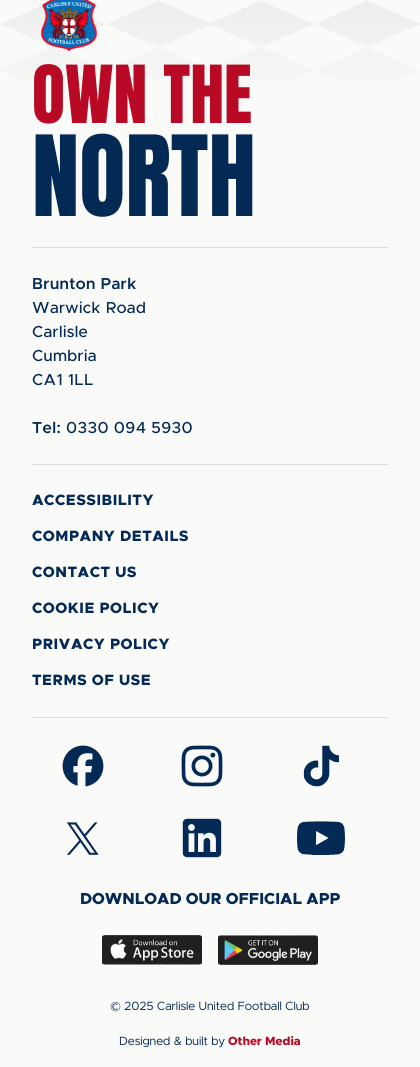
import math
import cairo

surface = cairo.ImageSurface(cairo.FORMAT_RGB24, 420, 1067)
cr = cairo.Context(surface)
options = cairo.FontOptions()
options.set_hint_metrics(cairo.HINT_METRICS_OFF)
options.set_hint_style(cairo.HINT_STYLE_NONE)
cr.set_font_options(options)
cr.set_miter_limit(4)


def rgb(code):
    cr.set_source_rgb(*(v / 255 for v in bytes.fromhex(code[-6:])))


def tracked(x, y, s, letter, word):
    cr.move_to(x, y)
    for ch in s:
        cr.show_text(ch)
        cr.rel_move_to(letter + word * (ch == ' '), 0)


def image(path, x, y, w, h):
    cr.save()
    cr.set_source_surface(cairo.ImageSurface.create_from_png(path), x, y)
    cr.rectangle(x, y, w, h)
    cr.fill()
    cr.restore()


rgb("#fafaf8")
cr.paint()
image("img/1.png", 1, 0, 418, 79)
image("img/2.png", 40, 0, 58, 52)
for x, y, w, h, color in [
    (32, 247, 356, 1, "#dcdcdc"),
    (32, 464, 356, 1, "#dcdcdc"),
    (32, 717, 356, 1, "#dcdcdc"),
]:
    rgb(color)
    cr.rectangle(x, y, w, h)
    cr.fill()
image("img/3.png", 62, 745, 42, 42)
image("img/4.png", 181, 745, 42, 42)
image("img/5.png", 303, 745, 36, 42)
image("img/6.png", 66, 822, 33, 33)
image("img/7.png", 182, 818, 40, 40)
image("img/8.png", 297, 821, 48, 34)
image("img/9.png", 102, 935, 100, 30)
image("img/10.png", 218, 935, 100, 30)
cr.select_font_face("Anton")
cr.set_font_size(68)
rgb("#b90a25")
cr.move_to(32, 123)
cr.show_text("OWN THE")
cr.set_font_size(95)
rgb("#032955")
cr.move_to(32, 216)
cr.show_text("NORTH")
cr.select_font_face("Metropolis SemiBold")
cr.set_font_size(16)
tracked(32, 289, "Brunton Park", 0.4, 0)
cr.select_font_face("Metropolis Medium")
for x, y, s in [
    (32, 313, "Warwick Road"),
    (32, 337, "Carlisle"),
    (32, 361, "Cumbria"),
    (32, 385, "CA1 1LL"),
]:
    tracked(x, y, s, 0.4, 0)
cr.select_font_face("Metropolis SemiBold")
tracked(32, 433, "Tel:", 0.4, 0)
cr.select_font_face("Metropolis Medium")
tracked(66, 433, "0330 094 5930", 0.4, 0)
cr.select_font_face("Metropolis ExtraBold")
cr.set_font_size(15)
for x, y, s in [
    (32, 505, "ACCESSIBILITY"),
    (32, 541, "COMPANY DETAILS"),
    (32, 577, "CONTACT US"),
    (32, 613, "COOKIE POLICY"),
    (32, 649, "PRIVACY POLICY"),
    (32, 685, "TERMS OF USE"),
]:
    tracked(x, y, s, 0.5, 0)
cr.set_font_size(16)
cr.move_to(80, 904)
cr.show_text("DOWNLOAD OUR OFFICIAL APP")
cr.select_font_face("Metropolis")
cr.set_font_size(12)
cr.move_to(110, 1010)
cr.show_text("© 2025 Carlisle United Football Club")
cr.move_to(119, 1045)
cr.show_text("Designed & built by")
cr.select_font_face("Metropolis ExtraBold")
rgb("#b90a25")
cr.move_to(228, 1045)
cr.show_text("Other Media")
surface.write_to_png("page.png")
